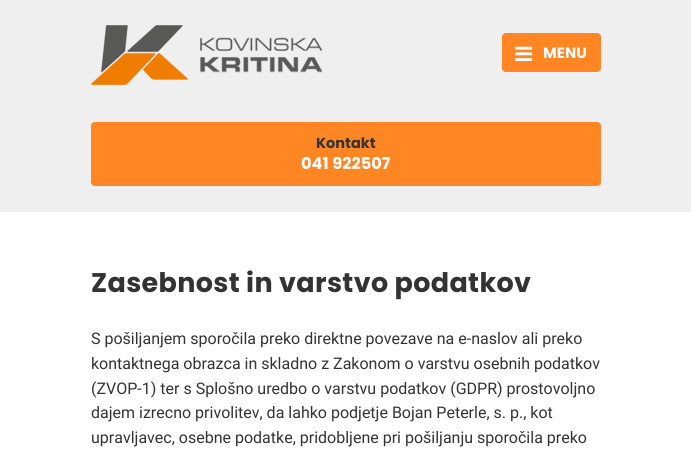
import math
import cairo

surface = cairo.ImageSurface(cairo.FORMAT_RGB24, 691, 463)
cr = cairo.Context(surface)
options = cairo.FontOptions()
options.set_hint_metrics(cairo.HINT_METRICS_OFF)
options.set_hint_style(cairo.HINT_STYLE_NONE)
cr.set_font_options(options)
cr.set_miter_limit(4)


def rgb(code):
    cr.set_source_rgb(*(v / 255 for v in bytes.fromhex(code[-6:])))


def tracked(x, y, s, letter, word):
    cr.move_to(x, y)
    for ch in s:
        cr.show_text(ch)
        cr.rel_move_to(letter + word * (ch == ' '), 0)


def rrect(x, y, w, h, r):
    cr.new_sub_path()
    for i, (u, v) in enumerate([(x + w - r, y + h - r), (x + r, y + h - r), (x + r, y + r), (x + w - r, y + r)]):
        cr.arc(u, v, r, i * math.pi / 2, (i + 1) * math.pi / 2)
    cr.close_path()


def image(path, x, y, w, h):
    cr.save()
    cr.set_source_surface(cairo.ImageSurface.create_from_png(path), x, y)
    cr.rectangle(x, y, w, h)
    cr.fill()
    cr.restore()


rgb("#ffffff")
cr.paint()
rgb("#efefef")
cr.rectangle(0, 0, 691, 212)
cr.fill()
image("img/1.png", 91, 25, 231, 60)
rgb("#ff8623")
rrect(502.5, 33.5, 98, 38, 3.5)
cr.fill_preserve()
cr.set_line_width(1)
cr.stroke()
image("img/2.png", 515, 46, 18, 15)
rrect(91, 122, 510, 64, 4)
cr.fill()
cr.select_font_face("Poppins", cairo.FONT_SLANT_NORMAL, cairo.FONT_WEIGHT_BOLD)
cr.set_font_size(15)
rgb("#ffffff")
cr.move_to(543, 58)
cr.show_text("MENU")
cr.set_font_size(14.5)
rgb("#333333")
cr.move_to(316, 148)
cr.show_text("Kontakt")
cr.set_font_size(16.25)
rgb("#ffffff")
cr.move_to(301, 169)
cr.show_text("041 922507")
cr.set_font_size(27)
rgb("#333333")
tracked(91, 292, "Zasebnost in varstvo podatkov", 0.35, 0)
cr.select_font_face("Roboto")
cr.set_font_size(16)
for x, y, s in [
    (91, 344, "S pošiljanjem sporočila preko direktne povezave na e-naslov ali preko"),
    (91, 369, "kontaktnega obrazca in skladno z Zakonom o varstvu osebnih podatkov"),
    (91, 394, "(ZVOP-1) ter s Splošno uredbo o varstvu podatkov (GDPR) prostovoljno"),
    (91, 418, "dajem izrecno privolitev, da lahko podjetje Bojan Peterle, s. p., kot"),
    (91, 443, "upravljavec, osebne podatke, pridobljene pri pošiljanju sporočila preko"),
]:
    cr.move_to(x, y)
    cr.show_text(s)
surface.write_to_png("page.png")
